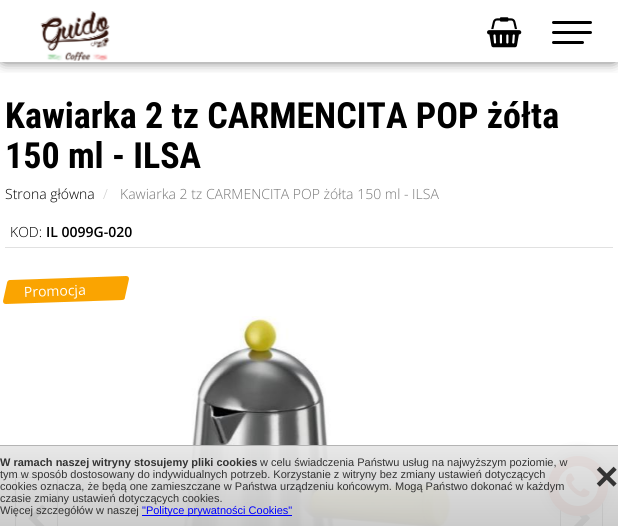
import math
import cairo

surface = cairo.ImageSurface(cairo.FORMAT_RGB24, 618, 526)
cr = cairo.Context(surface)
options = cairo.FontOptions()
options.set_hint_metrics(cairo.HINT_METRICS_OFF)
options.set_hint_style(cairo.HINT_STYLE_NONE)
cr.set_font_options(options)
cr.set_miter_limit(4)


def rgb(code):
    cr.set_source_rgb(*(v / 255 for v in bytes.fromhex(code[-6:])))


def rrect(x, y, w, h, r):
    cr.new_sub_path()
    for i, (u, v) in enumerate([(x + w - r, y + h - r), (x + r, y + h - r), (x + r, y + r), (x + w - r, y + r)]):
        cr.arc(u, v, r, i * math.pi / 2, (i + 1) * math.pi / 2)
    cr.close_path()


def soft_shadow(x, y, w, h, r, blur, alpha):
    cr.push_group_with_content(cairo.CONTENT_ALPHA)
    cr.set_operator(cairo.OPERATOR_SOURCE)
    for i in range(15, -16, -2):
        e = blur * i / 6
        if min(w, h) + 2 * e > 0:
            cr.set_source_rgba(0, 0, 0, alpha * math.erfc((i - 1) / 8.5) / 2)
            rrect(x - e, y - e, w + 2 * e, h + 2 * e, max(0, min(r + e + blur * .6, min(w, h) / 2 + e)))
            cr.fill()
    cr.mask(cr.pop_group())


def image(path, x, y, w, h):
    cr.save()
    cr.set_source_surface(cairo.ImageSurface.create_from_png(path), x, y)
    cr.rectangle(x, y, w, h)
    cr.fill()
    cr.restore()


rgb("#ffffff")
cr.paint()
cr.save()
cr.rectangle(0, 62, 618, 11)
cr.clip()
rgb("#000000")
soft_shadow(4, 4, 610, 54, 0, 7.5, 1)
cr.restore()
image("img/1.png", 40, 11, 70, 50)
image("img/2.png", 487, 17, 35, 31)
rgb("#000000")
rrect(552, 21, 40, 3, 1.5)
cr.fill()
rrect(552, 31, 40, 3, 1.5)
cr.fill()
rrect(552, 41, 32, 3, 1.5)
cr.fill()
rgb("#e1e1e1")
cr.rectangle(5, 247, 608, 1)
cr.fill()
rgb("#faa401")
cr.new_path()
cr.move_to(10, 280)
cr.line_to(126, 276)
cr.curve_to(128, 276, 129, 277, 129, 279)
cr.line_to(125, 297)
cr.curve_to(125, 299, 124, 300, 122, 300)
cr.line_to(6, 304)
cr.curve_to(4, 304, 3, 303, 3, 301)
cr.line_to(7, 283)
cr.curve_to(7, 282, 8, 280, 10, 280)
cr.close_path()
cr.fill()
image("img/3.png", 182, 316, 275, 210)
cr.rectangle(15.5, 477.5, 42, 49)
rgb("#000000")
cr.set_line_width(1)
cr.stroke()
image("img/4.png", 28, 504, 18, 22)
cr.rectangle(560.5, 477.5, 42, 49)
cr.stroke()
image("img/5.png", 574, 514, 16, 12)
rgb("#000000")
soft_shadow(552, 460, 52, 52, 26, 7.5, 1)
rgb("#bf3922")
cr.arc(578, 486, 30, 0, 2 * math.pi)
cr.fill()
rgb("#ffffff")
cr.arc(578, 486, 20, 0, 2 * math.pi)
cr.fill()
image("img/6.png", 566, 473, 24, 24)
gradient = cairo.LinearGradient(309, 446, 309, 526)
gradient.add_color_stop_rgba(0, 0.902, 0.902, 0.902, 0.95)
gradient.add_color_stop_rgba(1, 0.784, 0.784, 0.784, 0.95)
cr.set_source(gradient)
cr.rectangle(0, 446, 618, 80)
cr.fill()
rgb("#b4b4b4")
cr.rectangle(0, 445, 618, 1)
cr.fill()
rgb("#0000ff")
cr.rectangle(142, 515, 150, 1)
cr.fill()
cr.select_font_face("Roboto Condensed", cairo.FONT_SLANT_NORMAL, cairo.FONT_WEIGHT_BOLD)
cr.set_font_size(36)
rgb("#000000")
cr.move_to(5, 128)
cr.show_text("Kawiarka 2 tz CARMENCITA POP żółta")
cr.move_to(5, 168)
cr.show_text("150 ml - ILSA")
cr.select_font_face("Open Sans Light")
cr.set_font_size(14)
cr.move_to(5, 199)
cr.show_text("Strona główna")
rgb("#cccccc")
cr.move_to(103, 199)
cr.show_text("/")
rgb("#777777")
cr.move_to(120, 199)
cr.show_text("Kawiarka 2 tz CARMENCITA POP żółta 150 ml - ILSA")
rgb("#000000")
cr.move_to(10, 237)
cr.show_text("KOD:")
cr.select_font_face("Open Sans SemiBold")
cr.move_to(46, 237)
cr.show_text("IL 0099G-020")
cr.select_font_face("Open Sans")
rgb("#ffffff")
cr.save()
cr.translate(24, 297)
cr.rotate(-2 * math.pi / 180)
cr.move_to(0, 0)
cr.show_text("Promocja")
cr.restore()
cr.select_font_face("Liberation Sans", cairo.FONT_SLANT_NORMAL, cairo.FONT_WEIGHT_BOLD)
cr.set_font_size(11)
rgb("#333333")
cr.move_to(0, 466)
cr.show_text("W ramach naszej witryny stosujemy pliki cookies")
cr.select_font_face("Liberation Sans")
for x, y, s in [
    (260, 466, "w celu świadczenia Państwu usług na najwyższym poziomie, w"),
    (0, 478, "tym w sposób dostosowany do indywidualnych potrzeb. Korzystanie z witryny bez zmiany ustawień dotyczących"),
    (0, 490, "cookies oznacza, że będą one zamieszczane w Państwa urządzeniu końcowym. Mogą Państwo dokonać w każdym"),
    (0, 502, "czasie zmiany ustawień dotyczących cookies."),
    (0, 514, "Więcej szczegółów w naszej"),
]:
    cr.move_to(x, y)
    cr.show_text(s)
rgb("#0000ff")
cr.move_to(142, 514)
cr.show_text("\"Polityce prywatności Cookies\"")
cr.select_font_face("Liberation Sans", cairo.FONT_SLANT_NORMAL, cairo.FONT_WEIGHT_BOLD)
cr.set_font_size(40)
rgb("#333333")
cr.move_to(595, 490)
cr.show_text("×")
surface.write_to_png("page.png")
